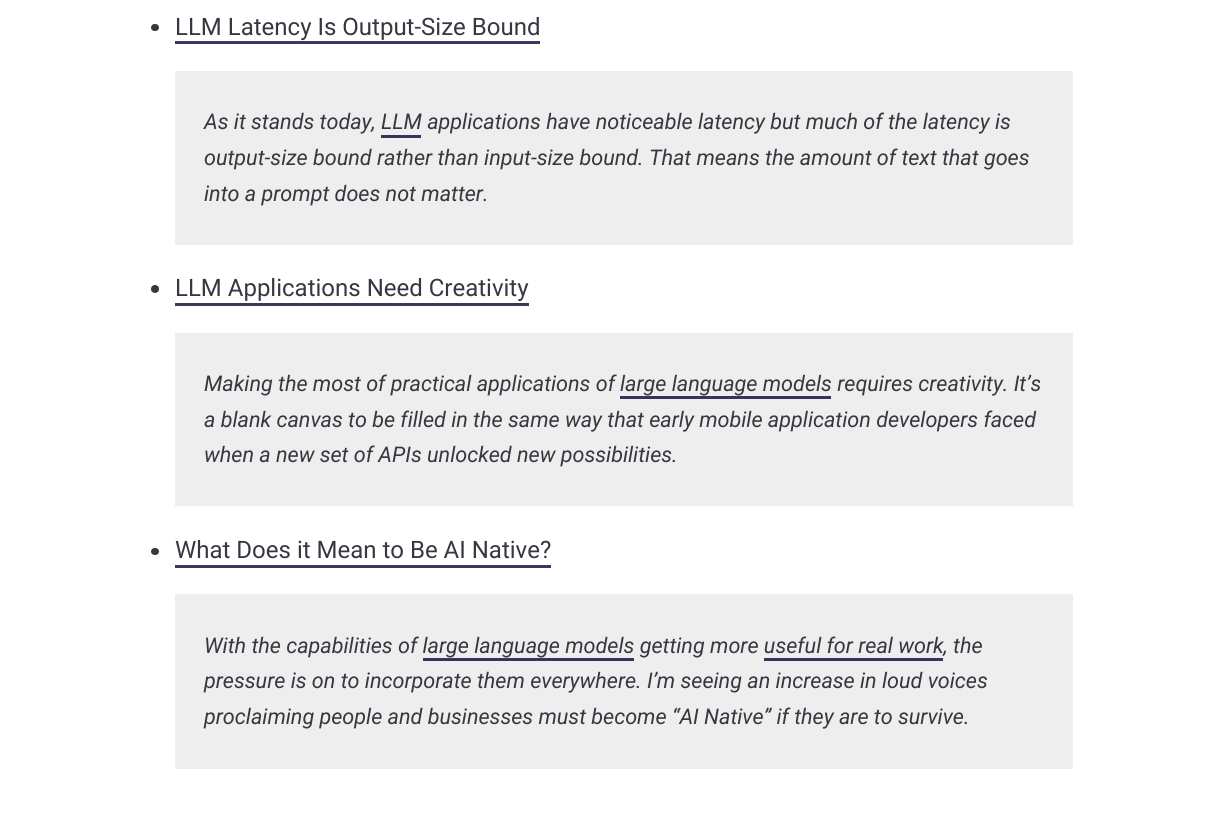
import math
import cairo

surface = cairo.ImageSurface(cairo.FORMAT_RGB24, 1219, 826)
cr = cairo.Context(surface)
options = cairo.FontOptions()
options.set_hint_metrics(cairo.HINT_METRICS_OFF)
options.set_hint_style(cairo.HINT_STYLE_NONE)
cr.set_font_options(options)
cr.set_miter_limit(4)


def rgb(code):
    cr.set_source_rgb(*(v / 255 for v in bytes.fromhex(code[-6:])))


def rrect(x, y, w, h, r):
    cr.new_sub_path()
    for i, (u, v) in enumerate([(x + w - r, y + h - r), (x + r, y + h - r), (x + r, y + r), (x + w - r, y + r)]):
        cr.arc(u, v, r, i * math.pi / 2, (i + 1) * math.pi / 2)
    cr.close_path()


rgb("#ffffff")
cr.paint()
rgb("#373741")
rrect(151, 24, 8, 7, 3.5)
cr.fill()
for x, y, w, h, color in [
    (175, 41, 365, 3, "#40355c"),
    (175, 71, 898, 174, "#eeeeee"),
    (381, 135, 40, 3, "#3d3159"),
]:
    rgb(color)
    cr.rectangle(x, y, w, h)
    cr.fill()
rgb("#373741")
cr.arc(155, 289, 4, 0, 2 * math.pi)
cr.fill()
for x, y, w, h, color in [
    (175, 303, 354, 3, "#40355c"),
    (175, 333, 898, 173, "#eeeeee"),
    (620, 396, 211, 3, "#3d3159"),
]:
    rgb(color)
    cr.rectangle(x, y, w, h)
    cr.fill()
rgb("#373741")
rrect(151, 548, 8, 7, 3.5)
cr.fill()
for x, y, w, h, color in [
    (175, 565, 376, 3, "#40355c"),
    (175, 594, 898, 175, "#eeeeee"),
    (423, 658, 211, 3, "#3d3159"),
    (764, 658, 179, 3, "#3d3159"),
]:
    rgb(color)
    cr.rectangle(x, y, w, h)
    cr.fill()
cr.select_font_face("Roboto")
cr.set_font_size(24)
rgb("#373741")
cr.move_to(175, 35)
cr.show_text("LLM Latency Is Output-Size Bound")
cr.select_font_face("Roboto", cairo.FONT_SLANT_ITALIC)
cr.set_font_size(21.6)
for x, y, s in [
    (204, 129, "As it stands today, LLM applications have noticeable latency but much of the latency is"),
    (204, 165, "output-size bound rather than input-size bound. That means the amount of text that goes"),
    (204, 201, "into a prompt does not matter."),
]:
    cr.move_to(x, y)
    cr.show_text(s)
cr.select_font_face("Roboto")
cr.set_font_size(24)
cr.move_to(175, 296)
cr.show_text("LLM Applications Need Creativity")
cr.select_font_face("Roboto", cairo.FONT_SLANT_ITALIC)
cr.set_font_size(21.6)
for x, y, s in [
    (204, 391, "Making the most of practical applications of"),
    (620, 391, "large language models requires creativity. It’s"),
    (204, 427, "a blank canvas to be filled in the same way that early mobile application developers faced"),
    (204, 462, "when a new set of APIs unlocked new possibilities."),
]:
    cr.move_to(x, y)
    cr.show_text(s)
cr.select_font_face("Roboto")
cr.set_font_size(24)
cr.move_to(175, 558)
cr.show_text("What Does it Mean to Be AI Native?")
cr.select_font_face("Roboto", cairo.FONT_SLANT_ITALIC)
cr.set_font_size(21.6)
for x, y, s in [
    (204, 653, "With the capabilities of large language models getting more useful for real work, the"),
    (204, 688, "pressure is on to incorporate them everywhere. I’m seeing an increase in loud voices"),
    (204, 724, "proclaiming people and businesses must become “AI Native” if they are to survive."),
]:
    cr.move_to(x, y)
    cr.show_text(s)
surface.write_to_png("page.png")
